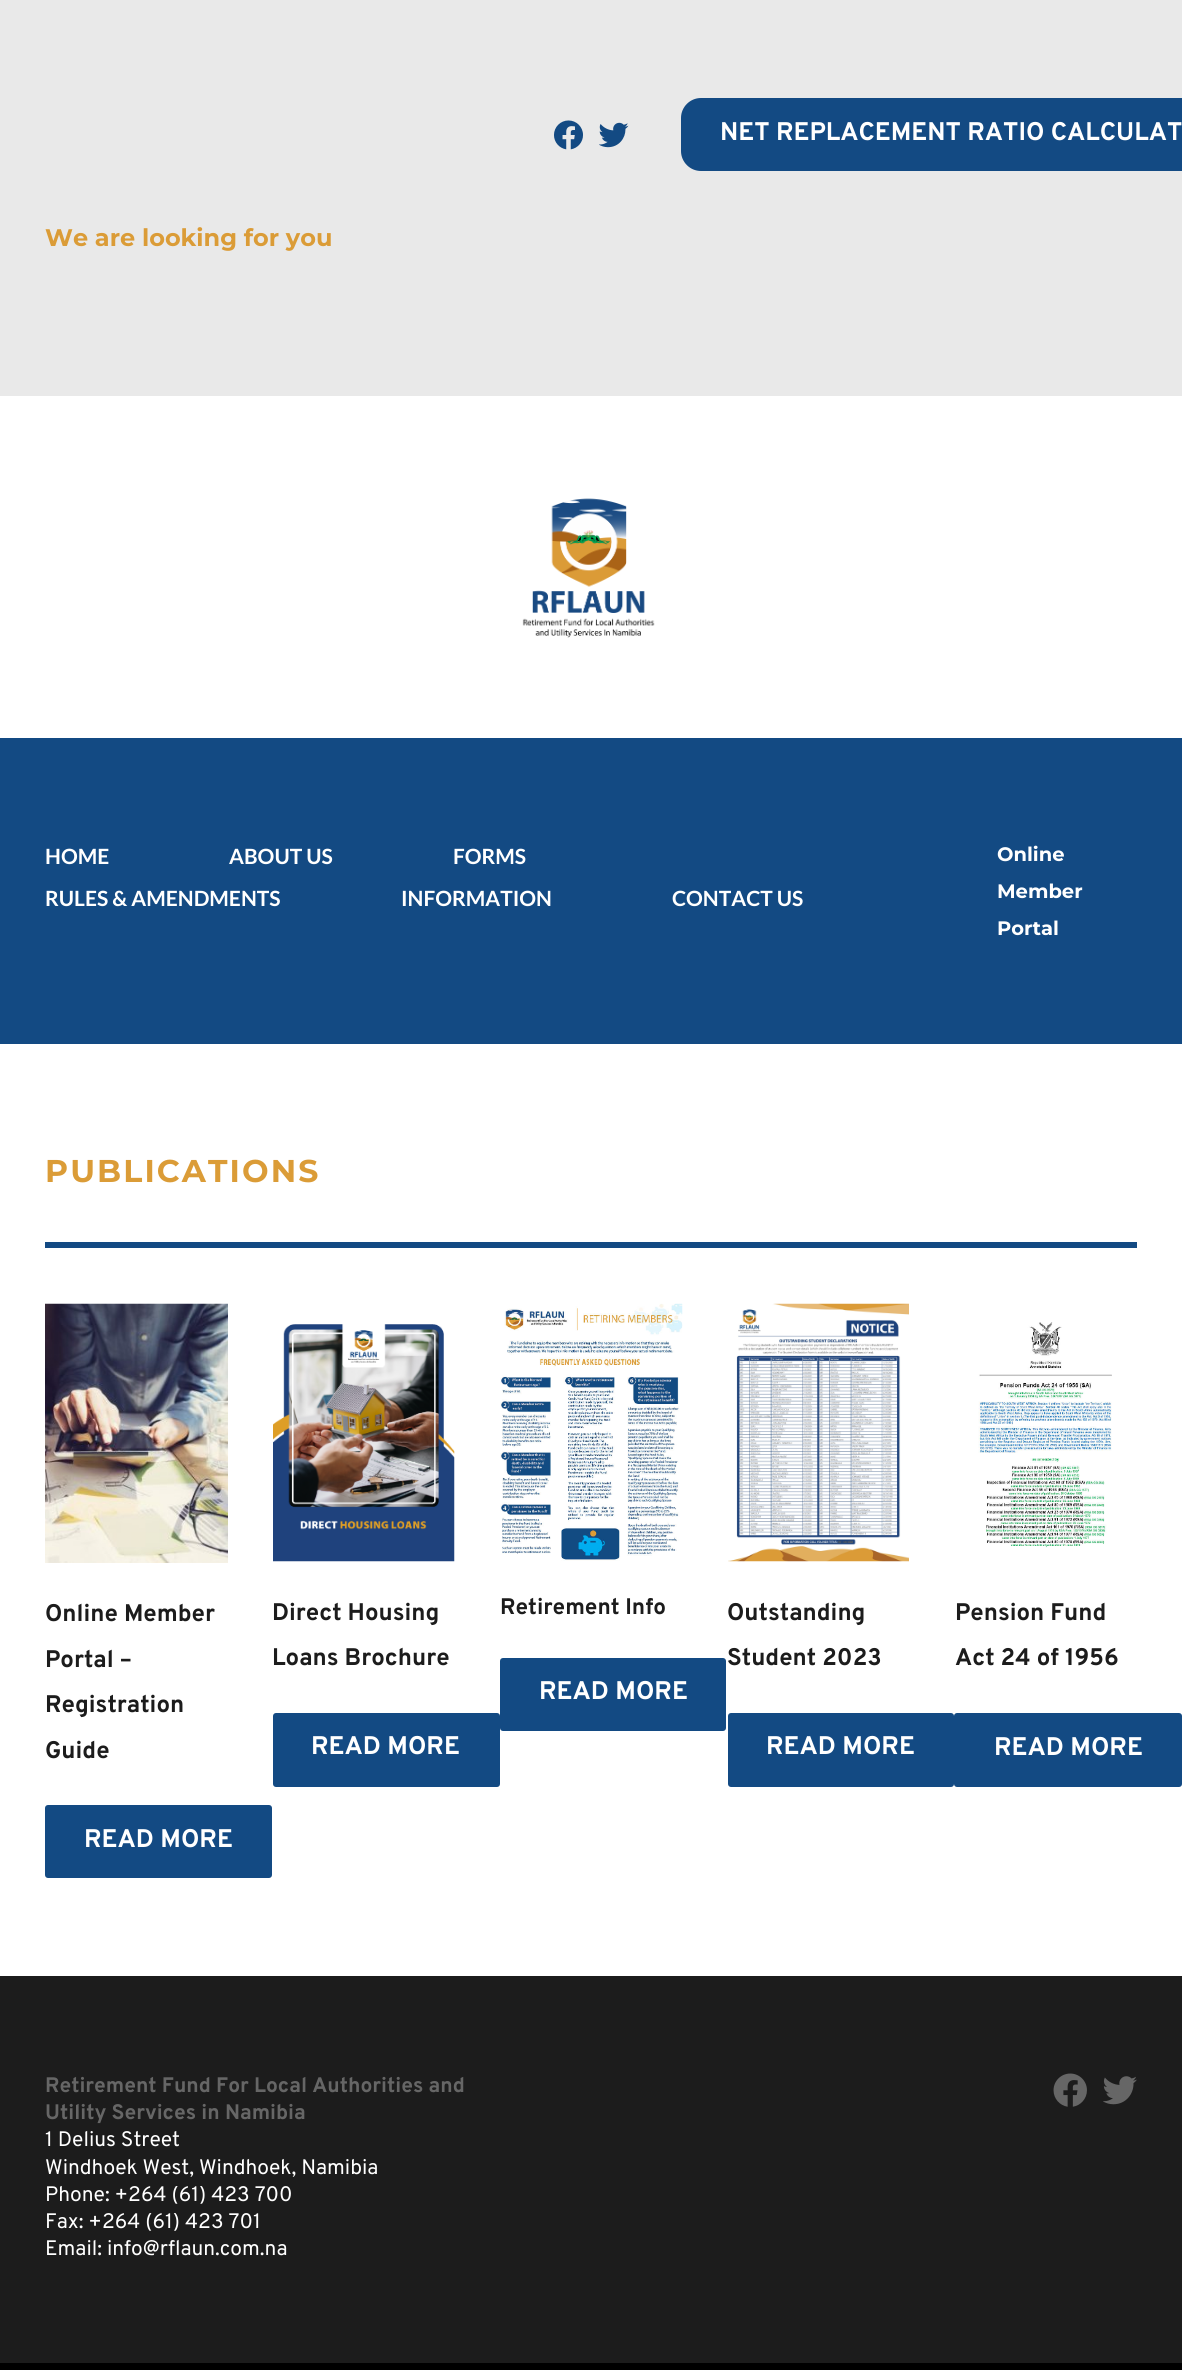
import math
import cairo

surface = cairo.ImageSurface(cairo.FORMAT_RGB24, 1182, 2370)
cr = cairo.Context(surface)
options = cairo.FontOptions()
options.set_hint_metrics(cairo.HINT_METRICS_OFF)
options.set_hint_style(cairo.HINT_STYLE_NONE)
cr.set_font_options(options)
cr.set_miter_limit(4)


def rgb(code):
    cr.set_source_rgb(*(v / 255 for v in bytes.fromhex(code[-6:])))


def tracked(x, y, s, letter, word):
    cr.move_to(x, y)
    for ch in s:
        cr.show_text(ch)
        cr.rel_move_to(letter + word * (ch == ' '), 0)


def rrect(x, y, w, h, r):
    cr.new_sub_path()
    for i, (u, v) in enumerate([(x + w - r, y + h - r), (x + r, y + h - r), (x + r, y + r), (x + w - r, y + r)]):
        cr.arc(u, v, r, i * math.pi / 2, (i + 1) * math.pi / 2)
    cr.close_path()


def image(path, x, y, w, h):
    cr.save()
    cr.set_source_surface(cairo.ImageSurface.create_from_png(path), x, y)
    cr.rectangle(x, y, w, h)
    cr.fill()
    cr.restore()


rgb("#ffffff")
cr.paint()
rgb("#e9e9e9")
cr.rectangle(0, 0, 1182, 396)
cr.fill()
image("img/1.png", 554, 120, 29, 30)
image("img/2.png", 599, 122, 30, 26)
rgb("#134a83")
cr.new_path()
cr.move_to(701, 98)
cr.line_to(1182, 98)
cr.line_to(1182, 171)
cr.line_to(701, 171)
cr.curve_to(690, 171, 681, 162, 681, 151)
cr.line_to(681, 118)
cr.curve_to(681, 107, 690, 98, 701, 98)
cr.close_path()
cr.fill()
image("img/3.png", 522, 498, 133, 140)
cr.rectangle(0, 738, 1182, 306)
cr.fill()
cr.rectangle(45, 1242, 1092, 6)
cr.fill()
image("img/4.png", 45, 1303, 183, 260)
rrect(45, 1805, 227, 73, 3)
cr.fill()
image("img/5.png", 273, 1324, 182, 238)
rrect(273, 1713, 227, 74, 3)
cr.fill()
image("img/6.png", 500, 1303, 183, 258)
rrect(500, 1658, 226, 73, 3)
cr.fill()
image("img/7.png", 728, 1303, 181, 259)
rrect(728, 1713, 226, 74, 3)
cr.fill()
image("img/8.png", 978, 1322, 134, 226)
rrect(954, 1713, 228, 74, 3)
cr.fill()
rgb("#1c1c1c")
cr.rectangle(0, 1976, 1182, 387)
cr.fill()
image("img/9.png", 1053, 2073, 34, 34)
image("img/10.png", 1103, 2076, 34, 29)
rgb("#000000")
cr.rectangle(0, 2363, 1182, 7)
cr.fill()
cr.select_font_face("Overpass", cairo.FONT_SLANT_NORMAL, cairo.FONT_WEIGHT_BOLD)
cr.set_font_size(25.5)
rgb("#ffffff")
cr.move_to(720, 140)
cr.show_text("NET REPLACEMENT RATIO CALCULAT")
cr.select_font_face("Montserrat Thin")
cr.set_font_size(24)
rgb("#db9c37")
cr.move_to(45, 246)
cr.show_text("We are looking for you")
cr.select_font_face("Lato", cairo.FONT_SLANT_NORMAL, cairo.FONT_WEIGHT_BOLD)
cr.set_font_size(21)
rgb("#ffffff")
for x, y, s in [
    (45, 864, "HOME"),
    (229, 864, "ABOUT US"),
    (453, 864, "FORMS"),
    (45, 906, "RULES & AMENDMENTS"),
    (401, 906, "INFORMATION"),
    (672, 906, "CONTACT US"),
]:
    cr.move_to(x, y)
    cr.show_text(s)
cr.select_font_face("Montserrat Thin")
cr.set_font_size(19.5)
for x, y, s in [
    (997, 861, "Online"),
    (997, 898, "Member"),
    (997, 935, "Portal"),
]:
    cr.move_to(x, y)
    cr.show_text(s)
cr.set_font_size(31.5)
rgb("#db9c37")
tracked(45, 1182, "PUBLICATIONS", 2.1, 0)
cr.select_font_face("Overpass", cairo.FONT_SLANT_NORMAL, cairo.FONT_WEIGHT_BOLD)
cr.set_font_size(24)
rgb("#1c1c1c")
for x, y, s in [
    (45, 1621, "Online Member"),
    (45, 1667, "Portal –"),
    (45, 1712, "Registration"),
    (45, 1758, "Guide"),
]:
    cr.move_to(x, y)
    cr.show_text(s)
cr.set_font_size(25.5)
rgb("#ffffff")
cr.move_to(84, 1847)
cr.show_text("READ MORE")
cr.set_font_size(24)
rgb("#1c1c1c")
cr.move_to(272, 1620)
cr.show_text("Direct Housing")
cr.move_to(272, 1665)
cr.show_text("Loans Brochure")
cr.set_font_size(25.5)
rgb("#ffffff")
cr.move_to(311, 1754)
cr.show_text("READ MORE")
cr.set_font_size(22.5)
rgb("#1c1c1c")
cr.move_to(500, 1614)
cr.show_text("Retirement Info")
cr.set_font_size(25.5)
rgb("#ffffff")
cr.move_to(539, 1699)
cr.show_text("READ MORE")
cr.set_font_size(24)
rgb("#1c1c1c")
cr.move_to(727, 1620)
cr.show_text("Outstanding")
cr.move_to(727, 1665)
cr.show_text("Student 2023")
cr.set_font_size(25.5)
rgb("#ffffff")
cr.move_to(766, 1754)
cr.show_text("READ MORE")
cr.set_font_size(24)
rgb("#1c1c1c")
cr.move_to(955, 1620)
cr.show_text("Pension Fund")
cr.move_to(955, 1665)
cr.show_text("Act 24 of 1956")
cr.set_font_size(25.5)
rgb("#ffffff")
cr.move_to(994, 1755)
cr.show_text("READ MORE")
cr.set_font_size(21)
rgb("#666666")
cr.move_to(45, 2092)
cr.show_text("Retirement Fund For Local Authorities and")
cr.move_to(45, 2119)
cr.show_text("Utility Services in Namibia")
cr.select_font_face("Overpass")
rgb("#ffffff")
for x, y, s in [
    (45, 2146, "1 Delius Street"),
    (45, 2174, "Windhoek West, Windhoek, Namibia"),
    (45, 2201, "Phone: +264 (61) 423 700"),
    (45, 2228, "Fax: +264 (61) 423 701"),
    (45, 2255, "Email: info@rflaun.com.na"),
]:
    cr.move_to(x, y)
    cr.show_text(s)
surface.write_to_png("page.png")
